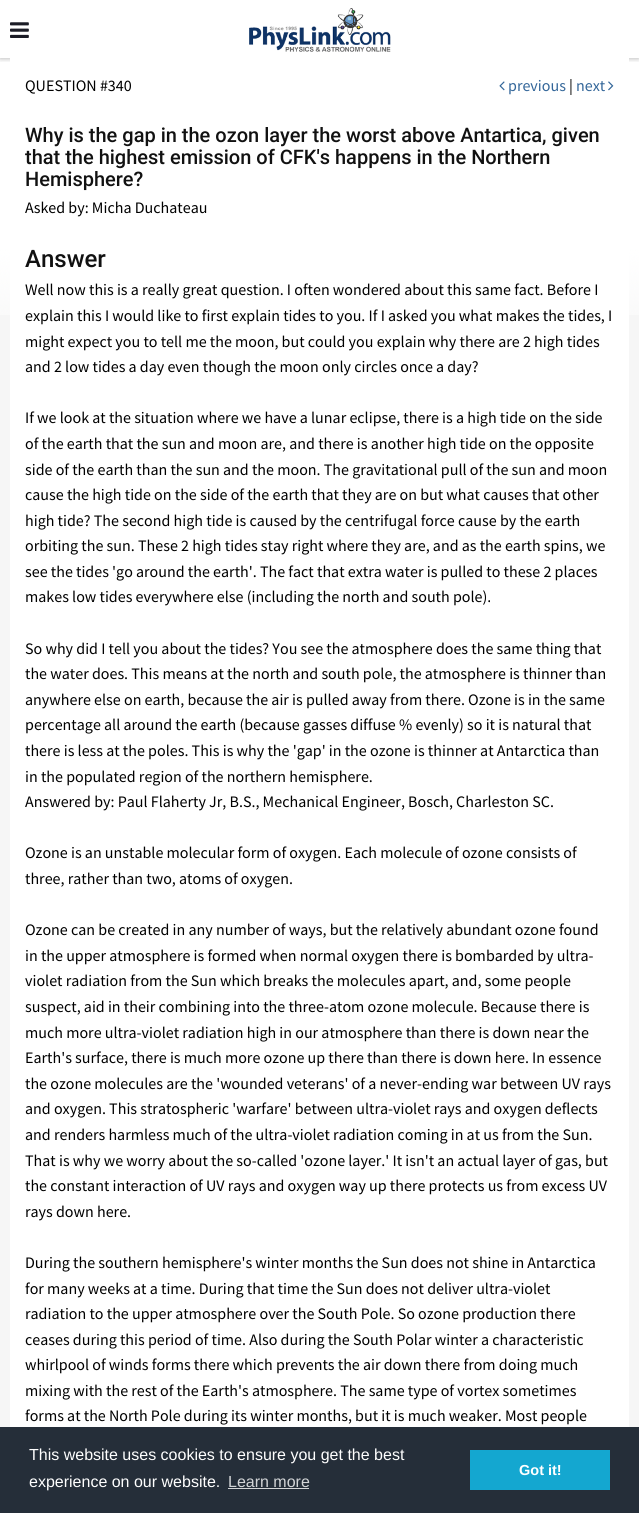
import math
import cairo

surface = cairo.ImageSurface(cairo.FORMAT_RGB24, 639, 1513)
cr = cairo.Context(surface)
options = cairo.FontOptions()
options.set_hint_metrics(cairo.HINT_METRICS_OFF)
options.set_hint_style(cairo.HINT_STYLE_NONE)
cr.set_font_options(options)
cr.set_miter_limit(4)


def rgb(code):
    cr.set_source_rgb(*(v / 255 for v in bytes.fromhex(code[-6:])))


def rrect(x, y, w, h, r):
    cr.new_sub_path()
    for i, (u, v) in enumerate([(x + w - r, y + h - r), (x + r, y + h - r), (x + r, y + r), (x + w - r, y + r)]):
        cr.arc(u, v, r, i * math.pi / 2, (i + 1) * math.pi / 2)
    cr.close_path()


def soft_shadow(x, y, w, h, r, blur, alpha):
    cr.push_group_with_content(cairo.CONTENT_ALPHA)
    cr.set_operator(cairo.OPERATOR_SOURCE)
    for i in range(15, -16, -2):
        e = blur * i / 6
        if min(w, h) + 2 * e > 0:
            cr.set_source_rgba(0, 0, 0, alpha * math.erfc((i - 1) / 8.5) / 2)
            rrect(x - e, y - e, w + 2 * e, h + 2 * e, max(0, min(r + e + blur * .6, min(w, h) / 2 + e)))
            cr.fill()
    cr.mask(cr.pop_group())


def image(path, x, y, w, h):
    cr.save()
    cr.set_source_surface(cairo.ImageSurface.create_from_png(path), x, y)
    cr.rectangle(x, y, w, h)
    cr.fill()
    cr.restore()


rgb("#f6f6f6")
cr.paint()
image("img/1.png", 0, 0, 639, 315)
cr.save()
cr.rectangle(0, 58, 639, 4)
cr.clip()
rgb("#000000")
soft_shadow(0, 1, 639, 58, 0, 2.5, 0.25)
cr.restore()
image("img/2.png", 10, 22, 19, 16)
image("img/3.png", 249, 8, 142, 44)
rgb("#ffffff")
cr.rectangle(10, 58, 619, 1369)
cr.fill()
image("img/4.png", 499, 81, 6, 10)
image("img/5.png", 608, 81, 6, 10)
for x, y, w, h, color in [
    (0, 1427, 639, 86, "#252e39"),
    (228, 1488, 81, 1, "#d3d5d7"),
    (470, 1450, 140, 40, "#14a7d0"),
]:
    rgb(color)
    cr.rectangle(x, y, w, h)
    cr.fill()
cr.select_font_face("Source Sans Pro")
cr.set_font_size(16)
rgb("#000000")
cr.move_to(25, 91)
cr.show_text("QUESTION #340")
rgb("#336699")
cr.move_to(508, 91)
cr.show_text("previous")
rgb("#000000")
cr.move_to(569, 91)
cr.show_text("|")
rgb("#336699")
cr.move_to(576, 91)
cr.show_text("next")
cr.select_font_face("Roboto Medium")
cr.set_font_size(20)
rgb("#111111")
for x, y, s in [
    (25, 142, "Why is the gap in the ozon layer the worst above Antartica, given"),
    (25, 164, "that the highest emission of CFK's happens in the Northern"),
    (25, 186, "Hemisphere?"),
]:
    cr.move_to(x, y)
    cr.show_text(s)
cr.select_font_face("Source Sans Pro")
cr.set_font_size(16)
rgb("#000000")
cr.move_to(25, 213)
cr.show_text("Asked by: Micha Duchateau")
cr.select_font_face("Roboto Medium")
cr.set_font_size(24)
rgb("#111111")
cr.move_to(25, 267)
cr.show_text("Answer")
cr.select_font_face("Source Sans Pro")
cr.set_font_size(16)
rgb("#000000")
for x, y, s in [
    (25, 295, "Well now this is a really great question. I often wondered about this same fact. Before I"),
    (25, 321, "explain this I would like to first explain tides to you. If I asked you what makes the tides, I"),
    (25, 347, "might expect you to tell me the moon, but could you explain why there are 2 high tides"),
    (25, 372, "and 2 low tides a day even though the moon only circles once a day?"),
    (25, 423, "If we look at the situation where we have a lunar eclipse, there is a high tide on the side"),
    (25, 449, "of the earth that the sun and moon are, and there is another high tide on the opposite"),
    (25, 475, "side of the earth than the sun and the moon. The gravitational pull of the sun and moon"),
    (25, 500, "cause the high tide on the side of the earth that they are on but what causes that other"),
    (25, 526, "high tide? The second high tide is caused by the centrifugal force cause by the earth"),
    (25, 551, "orbiting the sun. These 2 high tides stay right where they are, and as the earth spins, we"),
    (25, 577, "see the tides 'go around the earth'. The fact that extra water is pulled to these 2 places"),
    (25, 602, "makes low tides everywhere else (including the north and south pole)."),
    (25, 654, "So why did I tell you about the tides? You see the atmosphere does the same thing that"),
    (25, 679, "the water does. This means at the north and south pole, the atmosphere is thinner than"),
    (25, 705, "anywhere else on earth, because the air is pulled away from there. Ozone is in the same"),
    (25, 730, "percentage all around the earth (because gasses diffuse % evenly) so it is natural that"),
    (25, 756, "there is less at the poles. This is why the 'gap' in the ozone is thinner at Antarctica than"),
    (25, 782, "in the populated region of the northern hemisphere."),
    (25, 807, "Answered by: Paul Flaherty Jr, B.S., Mechanical Engineer, Bosch, Charleston SC."),
    (25, 858, "Ozone is an unstable molecular form of oxygen. Each molecule of ozone consists of"),
    (25, 884, "three, rather than two, atoms of oxygen."),
    (25, 935, "Ozone can be created in any number of ways, but the relatively abundant ozone found"),
    (25, 961, "in the upper atmosphere is formed when normal oxygen there is bombarded by ultra-"),
    (25, 986, "violet radiation from the Sun which breaks the molecules apart, and, some people"),
    (25, 1012, "suspect, aid in their combining into the three-atom ozone molecule. Because there is"),
    (25, 1038, "much more ultra-violet radiation high in our atmosphere than there is down near the"),
    (25, 1063, "Earth's surface, there is much more ozone up there than there is down here. In essence"),
    (25, 1089, "the ozone molecules are the 'wounded veterans' of a never-ending war between UV rays"),
    (25, 1114, "and oxygen. This stratospheric 'warfare' between ultra-violet rays and oxygen deflects"),
    (25, 1140, "and renders harmless much of the ultra-violet radiation coming in at us from the Sun."),
    (25, 1166, "That is why we worry about the so-called 'ozone layer.' It isn't an actual layer of gas, but"),
    (25, 1191, "the constant interaction of UV rays and oxygen way up there protects us from excess UV"),
    (25, 1217, "rays down here."),
    (25, 1268, "During the southern hemisphere's winter months the Sun does not shine in Antarctica"),
    (25, 1294, "for many weeks at a time. During that time the Sun does not deliver ultra-violet"),
    (25, 1319, "radiation to the upper atmosphere over the South Pole. So ozone production there"),
    (25, 1345, "ceases during this period of time. Also during the South Polar winter a characteristic"),
    (25, 1370, "whirlpool of winds forms there which prevents the air down there from doing much"),
    (25, 1396, "mixing with the rest of the Earth's atmosphere. The same type of vortex sometimes"),
    (25, 1421, "forms at the North Pole during its winter months, but it is much weaker. Most people"),
]:
    cr.move_to(x, y)
    cr.show_text(s)
cr.select_font_face("Liberation Sans")
rgb("#ffffff")
cr.move_to(29, 1460)
cr.show_text("This website uses cookies to ensure you get the best")
cr.move_to(29, 1487)
cr.show_text("experience on our website.")
rgb("#d3d5d7")
cr.move_to(228, 1487)
cr.show_text("Learn more")
cr.select_font_face("Liberation Sans", cairo.FONT_SLANT_NORMAL, cairo.FONT_WEIGHT_BOLD)
cr.set_font_size(14.5)
rgb("#ffffff")
cr.move_to(519, 1475)
cr.show_text("Got it!")
surface.write_to_png("page.png")
